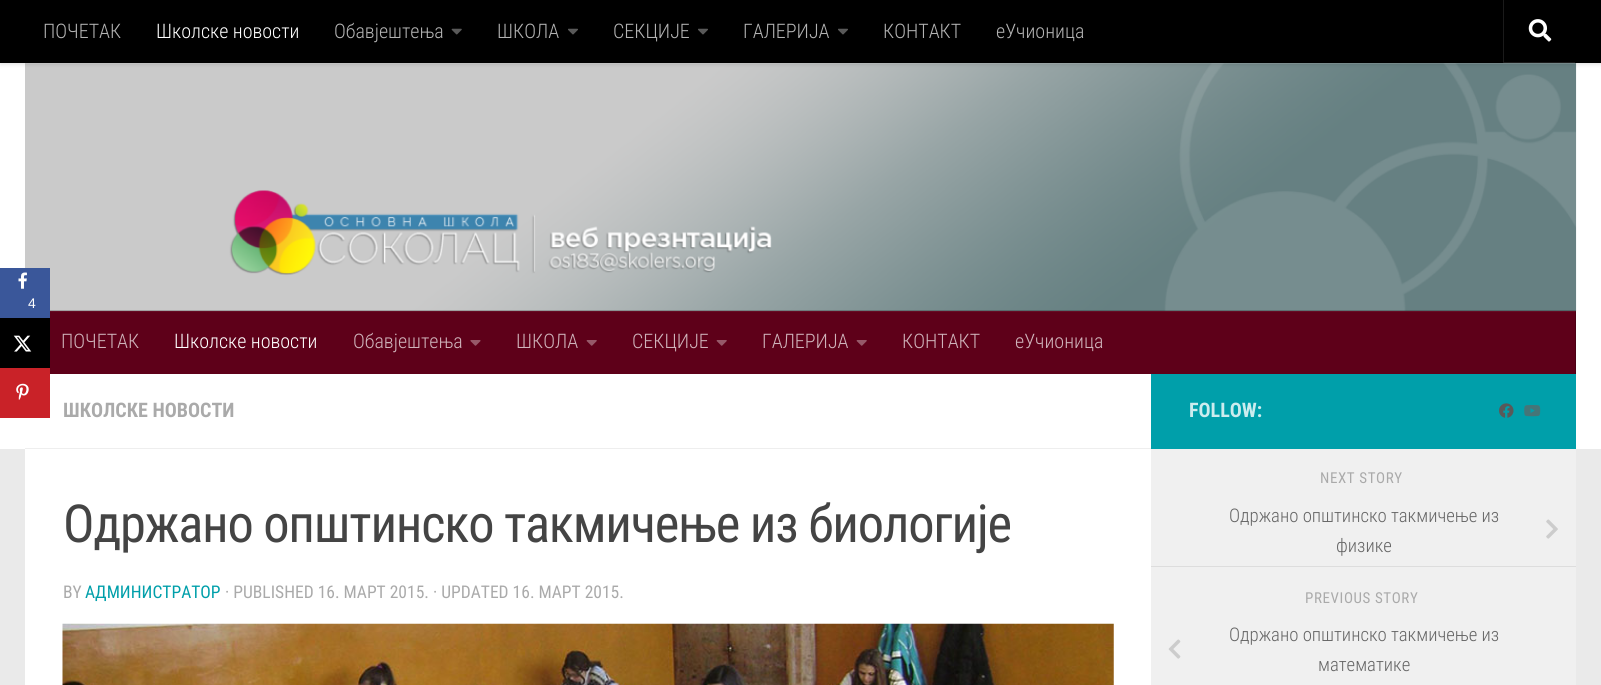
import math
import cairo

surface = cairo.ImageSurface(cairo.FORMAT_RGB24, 1601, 685)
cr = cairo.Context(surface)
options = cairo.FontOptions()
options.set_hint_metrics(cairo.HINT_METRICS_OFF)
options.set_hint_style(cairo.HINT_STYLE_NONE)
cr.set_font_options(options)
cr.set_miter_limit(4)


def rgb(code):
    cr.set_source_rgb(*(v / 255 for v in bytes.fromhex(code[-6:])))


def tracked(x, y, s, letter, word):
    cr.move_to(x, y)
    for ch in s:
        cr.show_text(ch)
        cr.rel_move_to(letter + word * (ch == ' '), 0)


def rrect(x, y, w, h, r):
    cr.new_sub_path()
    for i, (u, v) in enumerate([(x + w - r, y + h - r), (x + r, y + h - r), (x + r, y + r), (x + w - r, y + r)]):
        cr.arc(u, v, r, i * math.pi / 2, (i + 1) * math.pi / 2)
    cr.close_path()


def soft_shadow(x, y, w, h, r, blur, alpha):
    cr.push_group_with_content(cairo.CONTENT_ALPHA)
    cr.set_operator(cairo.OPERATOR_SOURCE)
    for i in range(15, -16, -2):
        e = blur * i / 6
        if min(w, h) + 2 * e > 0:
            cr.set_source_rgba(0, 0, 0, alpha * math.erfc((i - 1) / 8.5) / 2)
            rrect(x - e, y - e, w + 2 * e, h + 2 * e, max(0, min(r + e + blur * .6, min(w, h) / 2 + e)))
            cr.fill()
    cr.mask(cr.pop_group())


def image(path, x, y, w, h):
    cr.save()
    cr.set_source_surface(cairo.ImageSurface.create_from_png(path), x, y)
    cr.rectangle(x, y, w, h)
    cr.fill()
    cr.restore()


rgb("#eaeaea")
cr.paint()
rgb("#ffffff")
cr.rectangle(0, 63, 1601, 386)
cr.fill()
image("img/7.png", 25, 63, 1552, 248)
rgb("#3a579a")
cr.rectangle(0, 268, 50, 50)
cr.fill()
image("img/1.png", 18, 272, 9, 17)
rgb("#000000")
cr.rectangle(0, 318, 50, 50)
cr.fill()
image("img/2.png", 13, 335, 19, 17)
rgb("#c92228")
cr.rectangle(0, 368, 50, 50)
cr.fill()
image("img/3.png", 16, 383, 13, 17)
cr.set_source_rgba(1, 1, 1, 0.15)
cr.rectangle(25, 63, 1551, 1)
cr.fill()
rgb("#000000")
soft_shadow(0, 0, 1601, 63, 0, 3, 0.2)
rgb("#000000")
cr.rectangle(0, 0, 1601, 63)
cr.fill()
image("img/4.png", 451, 28, 11, 7)
image("img/5.png", 568, 28, 10, 7)
image("img/5.png", 698, 28, 10, 7)
image("img/5.png", 838, 28, 10, 7)
rgb("#1a1a1a")
cr.new_path()
cr.move_to(1503, 0)
cr.line_to(1503, 63)
cr.line_to(1575, 63)
cr.line_to(1575, 62)
cr.line_to(1504, 62)
cr.line_to(1504, 0)
cr.close_path()
cr.fill()
image("img/6.png", 1528, 19, 24, 23)
cr.set_source_rgba(0, 0, 0, 0.2)
cr.rectangle(50, 310, 1526, 1)
cr.fill()
rgb("#5e0019")
cr.rectangle(50, 311, 1525, 63)
cr.fill()
rgb("#4b0014")
cr.rectangle(1575, 311, 1, 63)
cr.fill()
cr.set_source_rgba(1, 1, 1, 0.05)
cr.rectangle(50, 311, 1526, 1)
cr.fill()
image("img/8.png", 470, 340, 11, 6)
image("img/9.png", 586, 340, 11, 6)
image("img/9.png", 716, 340, 11, 6)
image("img/9.png", 856, 340, 11, 6)
rgb("#ffffff")
cr.rectangle(25, 449, 1126, 236)
cr.fill()
rgb("#eeeeee")
cr.rectangle(25, 448, 1126, 1)
cr.fill()
image("img/10.png", 62, 623, 1052, 62)
rgb("#009faa")
cr.rectangle(1151, 374, 425, 75)
cr.fill()
image("img/11.png", 1499, 403, 15, 15)
image("img/12.png", 1524, 405, 17, 12)
rgb("#f0f0f0")
cr.rectangle(1151, 449, 425, 236)
cr.fill()
rgb("#dddddd")
cr.rectangle(1151, 566, 425, 1)
cr.fill()
image("img/13.png", 1546, 519, 12, 20)
image("img/14.png", 1168, 639, 13, 20)
cr.select_font_face("Liberation Sans")
cr.set_font_size(14)
rgb("#ffffff")
cr.move_to(28, 308)
cr.show_text("4")
cr.select_font_face("Roboto Condensed Light")
cr.set_font_size(20)
rgb("#b3b3b3")
cr.move_to(43, 38)
cr.show_text("ПОЧЕТАК")
rgb("#ffffff")
cr.move_to(156, 38)
cr.show_text("Школске новости")
rgb("#b3b3b3")
for x, y, s in [
    (334, 38, "Обавјештења"),
    (497, 38, "ШКОЛА"),
    (613, 38, "СЕКЦИЈЕ"),
    (743, 38, "ГАЛЕРИЈА"),
    (883, 38, "КОНТАКТ"),
    (996, 38, "еУчионица"),
]:
    cr.move_to(x, y)
    cr.show_text(s)
rgb("#cfb3ba")
cr.move_to(61, 348)
cr.show_text("ПОЧЕТАК")
rgb("#ffffff")
cr.move_to(174, 348)
cr.show_text("Школске новости")
rgb("#cfb3ba")
for x, y, s in [
    (353, 348, "Обавјештења"),
    (516, 348, "ШКОЛА"),
    (632, 348, "СЕКЦИЈЕ"),
    (762, 348, "ГАЛЕРИЈА"),
    (902, 348, "КОНТАКТ"),
    (1015, 348, "еУчионица"),
]:
    cr.move_to(x, y)
    cr.show_text(s)
cr.select_font_face("Roboto Condensed", cairo.FONT_SLANT_NORMAL, cairo.FONT_WEIGHT_BOLD)
rgb("#aaaaaa")
cr.move_to(63, 417)
cr.show_text("ШКОЛСКЕ НОВОСТИ")
cr.select_font_face("Roboto Condensed")
cr.set_font_size(52.4)
rgb("#444444")
tracked(63, 542, "Одржано општинско такмичење из биологије", -1.25, 0)
cr.set_font_size(17.5)
rgb("#aaaaaa")
cr.move_to(63, 598)
cr.show_text("BY")
rgb("#009faa")
cr.move_to(85, 598)
cr.show_text("АДМИНИСТРАТОР")
rgb("#aaaaaa")
cr.move_to(225, 598)
cr.show_text("· PUBLISHED 16. МАРТ 2015. · UPDATED 16. МАРТ 2015.")
cr.select_font_face("Roboto Condensed", cairo.FONT_SLANT_NORMAL, cairo.FONT_WEIGHT_BOLD)
cr.set_font_size(20)
rgb("#ccecee")
cr.move_to(1189, 417)
cr.show_text("FOLLOW:")
cr.select_font_face("Roboto Condensed")
cr.set_font_size(15)
rgb("#aaaaaa")
tracked(1320, 483, "NEXT STORY", 0.6, 0)
cr.select_font_face("Roboto Condensed Light")
cr.set_font_size(18.75)
rgb("#666666")
cr.move_to(1229, 522)
cr.show_text("Одржано општинско такмичење из")
cr.move_to(1336, 552)
cr.show_text("физике")
cr.select_font_face("Roboto Condensed")
cr.set_font_size(15)
rgb("#aaaaaa")
tracked(1305, 603, "PREVIOUS STORY", 0.6, 0)
cr.select_font_face("Roboto Condensed Light")
cr.set_font_size(18.75)
rgb("#666666")
cr.move_to(1229, 641)
cr.show_text("Одржано општинско такмичење из")
cr.move_to(1318, 671)
cr.show_text("математике")
surface.write_to_png("page.png")
